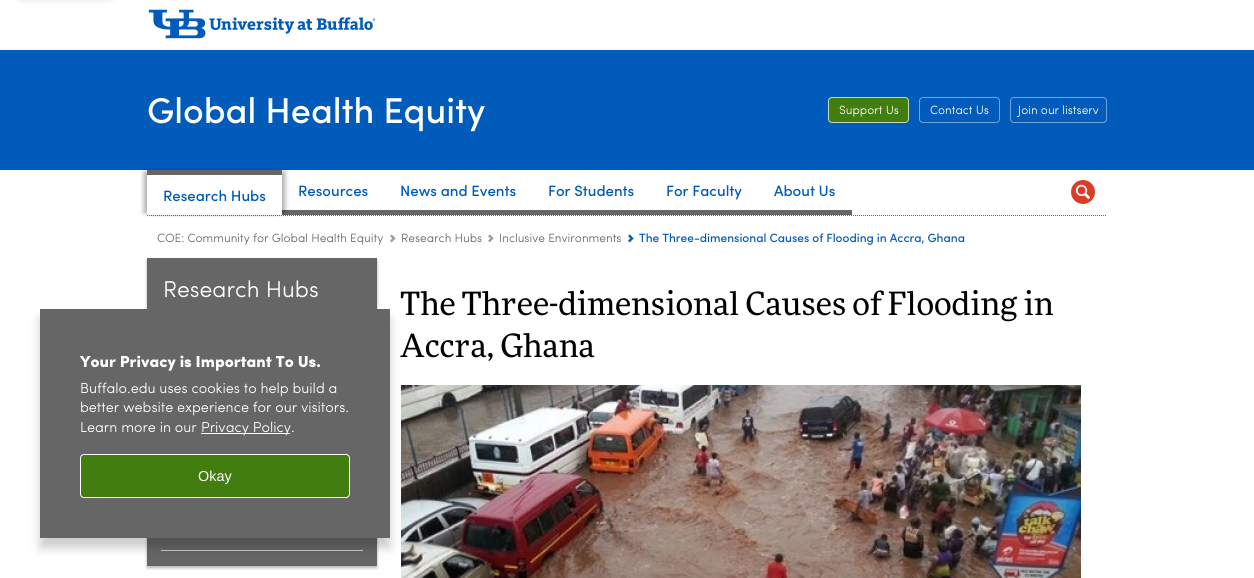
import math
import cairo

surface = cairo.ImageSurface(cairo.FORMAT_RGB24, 1254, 578)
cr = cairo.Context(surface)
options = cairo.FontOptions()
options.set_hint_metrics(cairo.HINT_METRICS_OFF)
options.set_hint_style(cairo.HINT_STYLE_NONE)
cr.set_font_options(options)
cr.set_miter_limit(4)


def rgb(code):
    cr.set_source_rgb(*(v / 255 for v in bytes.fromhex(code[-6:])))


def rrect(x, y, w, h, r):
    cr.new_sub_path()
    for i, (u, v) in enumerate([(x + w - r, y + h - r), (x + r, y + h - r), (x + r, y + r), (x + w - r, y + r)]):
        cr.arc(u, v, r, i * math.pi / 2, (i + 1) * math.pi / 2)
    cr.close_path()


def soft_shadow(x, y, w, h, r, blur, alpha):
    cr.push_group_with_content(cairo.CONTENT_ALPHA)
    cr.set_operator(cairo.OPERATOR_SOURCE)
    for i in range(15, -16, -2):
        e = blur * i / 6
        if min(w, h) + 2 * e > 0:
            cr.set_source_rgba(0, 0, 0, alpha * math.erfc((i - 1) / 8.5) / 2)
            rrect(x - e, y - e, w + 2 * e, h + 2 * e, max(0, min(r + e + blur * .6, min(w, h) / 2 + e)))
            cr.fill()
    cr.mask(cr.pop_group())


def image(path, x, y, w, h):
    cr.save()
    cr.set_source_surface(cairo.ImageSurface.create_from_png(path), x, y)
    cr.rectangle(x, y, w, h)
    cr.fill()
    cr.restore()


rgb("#ffffff")
cr.paint()
rgb("#000000")
soft_shadow(20, -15, 90, 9, 0, 5, 0.5)
image("img/1.png", 148, 9, 228, 30)
rgb("#005bbb")
cr.rectangle(0, 50, 1254, 120)
cr.fill()
rgb("#427d10")
rrect(828, 97, 81, 26, 4)
cr.fill()
rrect(828.5, 97.5, 80, 25, 3.5)
cr.set_source_rgba(1, 1, 1, 0.7)
cr.set_line_width(1)
cr.stroke()
rrect(919.5, 97.5, 80, 25, 3.5)
rgb("#73a5da")
cr.stroke()
rrect(1010.5, 97.5, 96, 25, 3.5)
cr.stroke()
cr.new_path()
cr.move_to(147, 215.5)
cr.line_to(1107, 215.5)
rgb("#666666")
cr.set_dash([1, 1])
cr.stroke()
cr.rectangle(282, 210, 570, 5)
cr.fill()
cr.save()
cr.set_fill_rule(cairo.FILL_RULE_EVEN_ODD)
cr.new_path()
cr.move_to(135, 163)
cr.line_to(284, 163)
cr.line_to(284, 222)
cr.line_to(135, 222)
cr.close_path()
cr.move_to(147, 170)
cr.line_to(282, 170)
cr.line_to(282, 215)
cr.line_to(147, 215)
cr.close_path()
cr.clip()
rgb("#000000")
soft_shadow(144, 172, 131, 41, 0, 2.5, 0.33)
cr.restore()
cr.save()
cr.set_fill_rule(cairo.FILL_RULE_EVEN_ODD)
cr.new_path()
cr.move_to(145, 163)
cr.line_to(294, 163)
cr.line_to(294, 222)
cr.line_to(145, 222)
cr.close_path()
cr.move_to(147, 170)
cr.line_to(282, 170)
cr.line_to(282, 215)
cr.line_to(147, 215)
cr.close_path()
cr.clip()
rgb("#000000")
soft_shadow(154, 172, 131, 41, 0, 2.5, 0.33)
cr.restore()
cr.rectangle(147, 170, 135, 5)
cr.fill()
rgb("#da3c28")
cr.arc(1083, 192, 12, 0, 2 * math.pi)
cr.fill()
image("img/2.png", 1075, 184, 16, 15)
image("img/3.png", 390, 234, 6, 9)
image("img/3.png", 488, 234, 6, 9)
image("img/4.png", 628, 234, 6, 9)
rgb("#000000")
soft_shadow(147, 260, 230, 308, 0, 1.5, 0.3)
rgb("#666666")
cr.rectangle(147, 258, 230, 308)
cr.fill()
rgb("#cbcbcb")
cr.rectangle(161, 550, 202, 1)
cr.fill()
image("img/5.png", 401, 385, 680, 193)
rgb("#000000")
soft_shadow(40, 319, 350, 229, 0, 5, 0.2)
rgb("#666666")
cr.rectangle(40, 309, 350, 229)
cr.fill()
rgb("#ffffff")
cr.rectangle(201, 433, 89, 1)
cr.fill()
rgb("#427d10")
rrect(80.5, 454.5, 269, 43, 3.5)
cr.fill_preserve()
rgb("#ffffff")
cr.set_dash([])
cr.stroke()
cr.select_font_face("Sofia Medium")
cr.set_font_size(36)
cr.move_to(147, 123)
cr.show_text("Global Health Equity")
cr.select_font_face("Sofia")
cr.set_font_size(12)
for x, y, s in [
    (839, 114, "Support Us"),
    (930, 114, "Contact Us"),
    (1018, 114, "Join our listserv"),
]:
    cr.move_to(x, y)
    cr.show_text(s)
cr.select_font_face("Sofia Medium")
cr.set_font_size(15)
rgb("#005bbb")
for x, y, s in [
    (163, 201, "Research Hubs"),
    (298, 196, "Resources"),
    (400, 196, "News and Events"),
    (548, 196, "For Students"),
    (666, 196, "For Faculty"),
    (774, 196, "About Us"),
]:
    cr.move_to(x, y)
    cr.show_text(s)
cr.select_font_face("Sofia")
cr.set_font_size(12)
rgb("#666666")
for x, y, s in [
    (157, 242, "COE: Community for Global Health Equity"),
    (401, 242, "Research Hubs"),
    (499, 242, "Inclusive Environments"),
]:
    cr.move_to(x, y)
    cr.show_text(s)
cr.select_font_face("Sofia Medium")
rgb("#005bbb")
cr.move_to(639, 242)
cr.show_text("The Three-dimensional Causes of Flooding in Accra, Ghana")
cr.select_font_face("Sofia")
cr.set_font_size(23)
rgb("#ffffff")
cr.move_to(163, 297)
cr.show_text("Research Hubs")
cr.select_font_face("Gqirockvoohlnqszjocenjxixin")
cr.set_font_size(32)
rgb("#000000")
cr.move_to(400, 315)
cr.show_text("The Three-dimensional Causes of Flooding in")
cr.move_to(400, 357)
cr.show_text("Accra, Ghana")
cr.select_font_face("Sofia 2")
cr.set_font_size(16)
rgb("#ffffff")
cr.move_to(80, 367)
cr.show_text("Your Privacy is Important To Us.")
cr.select_font_face("Sofia")
cr.set_font_size(14.4)
for x, y, s in [
    (80, 393, "Buffalo.edu uses cookies to help build a"),
    (80, 412, "better website experience for our visitors."),
    (80, 432, "Learn more in our"),
    (201, 432, "Privacy Policy."),
]:
    cr.move_to(x, y)
    cr.show_text(s)
cr.select_font_face("Liberation Sans")
cr.move_to(198, 481)
cr.show_text("Okay")
surface.write_to_png("page.png")
